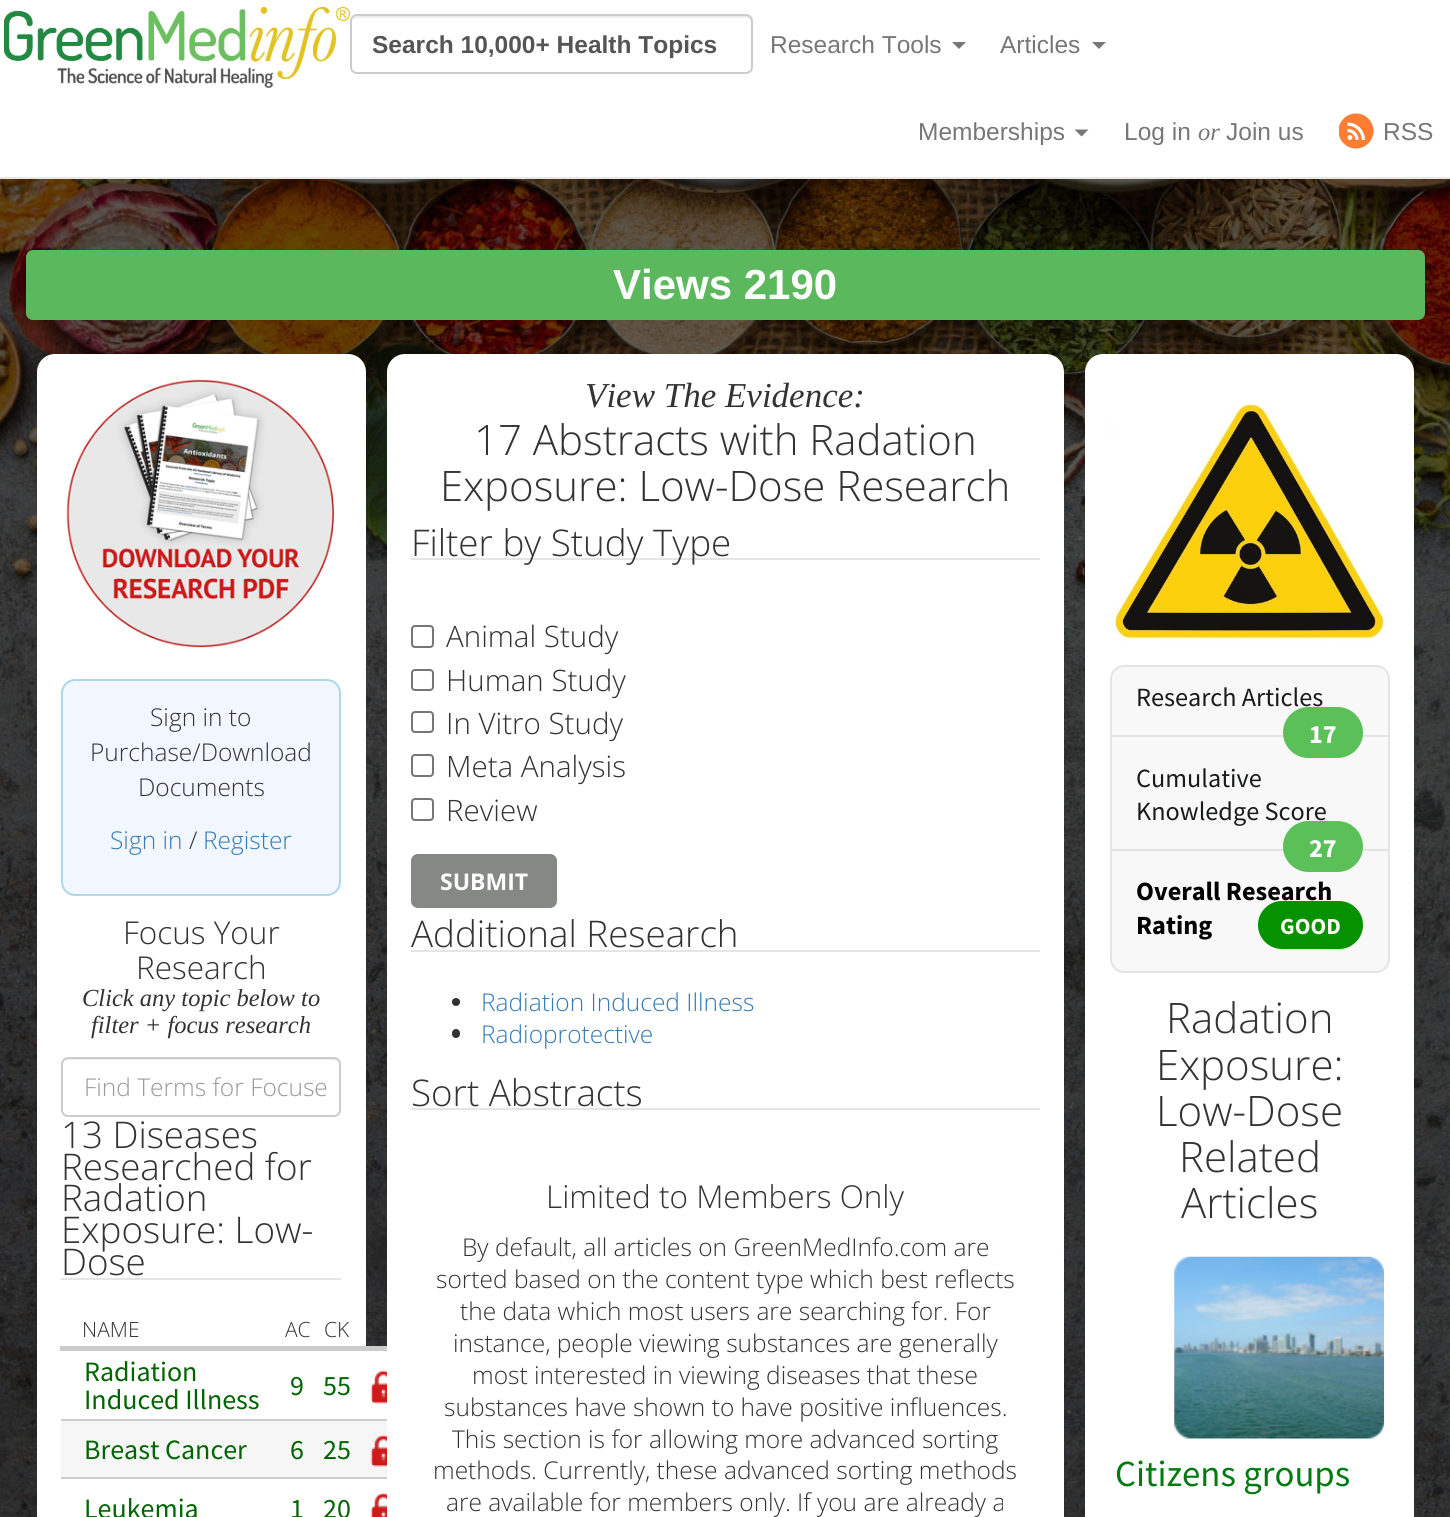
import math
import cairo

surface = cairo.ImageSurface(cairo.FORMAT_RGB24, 1450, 1517)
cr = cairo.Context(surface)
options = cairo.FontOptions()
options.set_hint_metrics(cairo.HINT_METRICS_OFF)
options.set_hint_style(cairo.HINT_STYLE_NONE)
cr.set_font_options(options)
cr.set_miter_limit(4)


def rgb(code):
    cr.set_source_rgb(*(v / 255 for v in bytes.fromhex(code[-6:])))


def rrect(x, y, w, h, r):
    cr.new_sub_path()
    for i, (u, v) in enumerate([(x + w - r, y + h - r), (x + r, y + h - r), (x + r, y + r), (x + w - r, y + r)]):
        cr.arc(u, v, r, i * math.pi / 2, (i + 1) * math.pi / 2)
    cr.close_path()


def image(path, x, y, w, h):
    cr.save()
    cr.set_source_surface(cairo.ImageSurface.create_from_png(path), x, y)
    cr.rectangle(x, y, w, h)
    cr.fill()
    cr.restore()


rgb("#ffffff")
cr.paint()
rgb("#e7e7e7")
cr.rectangle(0, 177, 1450, 2)
cr.fill()
image("img/1.png", 4, 7, 346, 81)
rgb("#ececec")
cr.new_path()
cr.move_to(357, 18)
cr.line_to(746, 18)
cr.curve_to(748, 18, 751, 20, 751, 23)
cr.line_to(751, 21)
cr.curve_to(751, 18, 749, 16, 746, 16)
cr.line_to(357, 16)
cr.curve_to(354, 16, 352, 18, 352, 21)
cr.line_to(352, 23)
cr.curve_to(352, 20, 354, 18, 357, 18)
cr.close_path()
cr.fill()
rrect(351, 15, 401, 58, 6)
rgb("#cccccc")
cr.stroke()
rgb("#777777")
cr.new_path()
cr.move_to(952, 42)
cr.line_to(966, 42)
cr.line_to(959, 49)
cr.close_path()
cr.fill()
cr.new_path()
cr.move_to(1092, 42)
cr.line_to(1106, 42)
cr.line_to(1099, 49)
cr.close_path()
cr.fill()
cr.new_path()
cr.move_to(1074.5, 129.5)
cr.line_to(1088.5, 129.5)
cr.line_to(1081.5, 136.5)
cr.close_path()
cr.fill()
image("img/2.png", 1339, 113, 35, 36)
image("img/3.png", 0, 179, 1450, 1338)
rgb("#5cb85c")
rrect(26, 250, 1399, 70, 7)
cr.fill()
rgb("#ffffff")
rrect(37, 354, 329, 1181, 18)
cr.fill()
image("img/4.png", 66, 379, 268, 269)
rgb("#f1f6ff")
rrect(62, 680, 278, 215, 13)
cr.fill_preserve()
rgb("#add8e6")
cr.stroke()
rgb("#ececec")
cr.new_path()
cr.move_to(68, 1060)
cr.line_to(334, 1060)
cr.curve_to(337, 1060, 340, 1063, 340, 1066)
cr.line_to(340, 1064)
cr.curve_to(340, 1061, 338, 1059, 335, 1059)
cr.line_to(68, 1059)
cr.curve_to(65, 1059, 63, 1061, 63, 1064)
cr.line_to(63, 1066)
cr.curve_to(63, 1063, 65, 1060, 68, 1060)
cr.close_path()
cr.fill()
rrect(62, 1058, 278, 58, 6)
rgb("#cccccc")
cr.stroke()
for x, y, w, h, color in [
    (61, 1278, 280, 2, "#e5e5e5"),
    (60, 1346, 327, 5, "#cccccc"),
    (61, 1419, 326, 2, "#cccccc"),
    (366, 1351, 21, 68, "#ffffff"),
]:
    rgb(color)
    cr.rectangle(x, y, w, h)
    cr.fill()
image("img/5.png", 370, 1370, 17, 34)
rgb("#cccccc")
cr.rectangle(61, 1477, 326, 2)
cr.fill()
rgb("#f6f6f6")
cr.rectangle(61, 1421, 326, 56)
cr.fill()
image("img/6.png", 370, 1435, 17, 32)
rgb("#ffffff")
cr.rectangle(366, 1479, 21, 38)
cr.fill()
image("img/7.png", 370, 1492, 17, 25)
rrect(387, 354, 677, 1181, 18)
cr.fill()
rgb("#e5e5e5")
cr.rectangle(411, 558, 629, 2)
cr.fill()
rrect(412, 626, 21, 21, 3)
rgb("#767676")
cr.stroke()
rrect(412, 670, 21, 20, 3)
cr.stroke()
rrect(412, 712, 21, 20, 3)
cr.stroke()
rrect(412, 755, 21, 21, 3)
cr.stroke()
rrect(412, 799, 21, 21, 3)
cr.stroke()
rgb("#858885")
rrect(411, 854, 146, 54, 7)
cr.fill()
rgb("#e5e5e5")
cr.rectangle(411, 950, 629, 2)
cr.fill()
rgb("#333333")
cr.arc(456, 1002, 4, 0, 2 * math.pi)
cr.fill()
rrect(452, 1029, 8, 9, 4)
cr.fill()
rgb("#e5e5e5")
cr.rectangle(411, 1108, 629, 2)
cr.fill()
rgb("#ffffff")
rrect(1085, 354, 329, 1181, 18)
cr.fill()
image("img/8.png", 1109, 401, 279, 242)
rgb("#f8f8f8")
rrect(1111, 666, 278, 306, 13)
cr.fill_preserve()
rgb("#e5e3e3")
cr.stroke()
cr.rectangle(1111, 735, 277, 2)
cr.fill()
rgb("#5ac057")
rrect(1283, 707, 80, 51, 25.5)
cr.fill()
rgb("#e5e3e3")
cr.rectangle(1111, 849, 277, 2)
cr.fill()
rgb("#5ac057")
rrect(1283, 821, 80, 51, 25.5)
cr.fill()
rgb("#069200")
rrect(1258, 901, 105, 48, 24)
cr.fill()
image("img/9.png", 1174, 1256, 211, 183)
cr.select_font_face("Liberation Sans", cairo.FONT_SLANT_NORMAL, cairo.FONT_WEIGHT_BOLD)
cr.set_font_size(24.5)
rgb("#555555")
cr.move_to(372, 53)
cr.show_text("Search 10,000+ Health Topics")
cr.select_font_face("Liberation Sans")
rgb("#777777")
for x, y, s in [
    (770, 53, "Research Tools"),
    (1000, 53, "Articles"),
    (918, 140, "Memberships"),
    (1124, 140, "Log in"),
]:
    cr.move_to(x, y)
    cr.show_text(s)
cr.select_font_face("Liberation Serif", cairo.FONT_SLANT_ITALIC)
cr.move_to(1198, 140)
cr.show_text("or")
cr.select_font_face("Liberation Sans")
cr.move_to(1226, 140)
cr.show_text("Join us")
cr.move_to(1383, 140)
cr.show_text("RSS")
cr.select_font_face("Liberation Sans", cairo.FONT_SLANT_NORMAL, cairo.FONT_WEIGHT_BOLD)
cr.set_font_size(42)
rgb("#ffffff")
cr.move_to(613, 299)
cr.show_text("Views 2190")
cr.select_font_face("Open Sans Light")
cr.set_font_size(24.5)
rgb("#333333")
for x, y, s in [
    (150, 726, "Sign in to"),
    (90, 761, "Purchase/Download"),
    (138, 796, "Documents"),
]:
    cr.move_to(x, y)
    cr.show_text(s)
rgb("#337ab7")
cr.move_to(110, 849)
cr.show_text("Sign in")
rgb("#333333")
cr.move_to(189, 849)
cr.show_text("/")
rgb("#337ab7")
cr.move_to(203, 849)
cr.show_text("Register")
cr.set_font_size(31.5)
rgb("#333333")
cr.move_to(123, 944)
cr.show_text("Focus Your")
cr.move_to(136, 979)
cr.show_text("Research")
cr.select_font_face("Liberation Serif", cairo.FONT_SLANT_ITALIC)
cr.set_font_size(24.5)
cr.move_to(82, 1006)
cr.show_text("Click any topic below to")
cr.move_to(91, 1033)
cr.show_text("filter + focus research")
cr.select_font_face("Open Sans Light")
rgb("#999999")
cr.move_to(84, 1096)
cr.show_text("Find Terms for Focuse")
cr.set_font_size(36.75)
rgb("#333333")
for x, y, s in [
    (61, 1148, "13 Diseases"),
    (61, 1180, "Researched for"),
    (61, 1211, "Radation"),
    (61, 1243, "Exposure: Low-"),
    (61, 1275, "Dose"),
]:
    cr.move_to(x, y)
    cr.show_text(s)
cr.set_font_size(21)
for x, y, s in [
    (82, 1337, "NAME"),
    (285, 1337, "AC"),
    (324, 1337, "CK"),
]:
    cr.move_to(x, y)
    cr.show_text(s)
cr.select_font_face("Source Sans Pro")
cr.set_font_size(28)
rgb("#006500")
for x, y, s in [
    (84, 1381, "Radiation"),
    (84, 1409, "Induced Illness"),
    (290, 1395, "9"),
    (323, 1395, "55"),
    (84, 1459, "Breast Cancer"),
    (290, 1459, "6"),
    (323, 1459, "25"),
    (84, 1518, "Leukemia"),
    (290, 1518, "1"),
    (323, 1518, "20"),
]:
    cr.move_to(x, y)
    cr.show_text(s)
cr.select_font_face("Liberation Serif", cairo.FONT_SLANT_ITALIC)
cr.set_font_size(35)
rgb("#333333")
cr.move_to(585, 407)
cr.show_text("View The Evidence:")
cr.select_font_face("Open Sans Light")
cr.set_font_size(42)
cr.move_to(474, 455)
cr.show_text("17 Abstracts with Radation")
cr.move_to(440, 501)
cr.show_text("Exposure: Low-Dose Research")
cr.set_font_size(36.75)
cr.move_to(411, 556)
cr.show_text("Filter by Study Type")
cr.set_font_size(29.5)
for x, y, s in [
    (446, 647, "Animal Study"),
    (446, 691, "Human Study"),
    (446, 734, "In Vitro Study"),
    (446, 777, "Meta Analysis"),
    (446, 821, "Review"),
]:
    cr.move_to(x, y)
    cr.show_text(s)
cr.select_font_face("Open Sans", cairo.FONT_SLANT_NORMAL, cairo.FONT_WEIGHT_BOLD)
cr.set_font_size(23)
rgb("#ffffff")
cr.move_to(440, 890)
cr.show_text("SUBMIT")
cr.select_font_face("Open Sans Light")
cr.set_font_size(36.75)
rgb("#333333")
cr.move_to(411, 947)
cr.show_text("Additional Research")
cr.set_font_size(24.5)
rgb("#337ab7")
cr.move_to(481, 1011)
cr.show_text("Radiation Induced Illness")
cr.move_to(481, 1043)
cr.show_text("Radioprotective")
cr.set_font_size(36.75)
rgb("#333333")
cr.move_to(411, 1106)
cr.show_text("Sort Abstracts")
cr.set_font_size(31.5)
cr.move_to(546, 1208)
cr.show_text("Limited to Members Only")
cr.set_font_size(24.5)
for x, y, s in [
    (462, 1256, "By default, all articles on GreenMedInfo.com are"),
    (436, 1288, "sorted based on the content type which best reflects"),
    (460, 1320, "the data which most users are searching for. For"),
    (453, 1352, "instance, people viewing substances are generally"),
    (472, 1384, "most interested in viewing diseases that these"),
    (444, 1416, "substances have shown to have positive influences."),
    (452, 1448, "This section is for allowing more advanced sorting"),
    (433, 1479, "methods. Currently, these advanced sorting methods"),
    (446, 1511, "are available for members only. If you are already a"),
]:
    cr.move_to(x, y)
    cr.show_text(s)
cr.select_font_face("Source Sans Pro")
cr.set_font_size(26.25)
rgb("#191b1a")
cr.move_to(1136, 706)
cr.show_text("Research Articles")
cr.select_font_face("Source Sans Pro", cairo.FONT_SLANT_NORMAL, cairo.FONT_WEIGHT_BOLD)
rgb("#ffffff")
cr.move_to(1309, 743)
cr.show_text("17")
cr.select_font_face("Source Sans Pro")
rgb("#191b1a")
cr.move_to(1136, 787)
cr.show_text("Cumulative")
cr.move_to(1136, 820)
cr.show_text("Knowledge Score")
cr.select_font_face("Source Sans Pro", cairo.FONT_SLANT_NORMAL, cairo.FONT_WEIGHT_BOLD)
rgb("#ffffff")
cr.move_to(1309, 857)
cr.show_text("27")
rgb("#000000")
cr.move_to(1136, 900)
cr.show_text("Overall Research")
cr.move_to(1136, 934)
cr.show_text("Rating")
cr.set_font_size(23)
rgb("#fbfef3")
cr.move_to(1280, 934)
cr.show_text("GOOD")
cr.select_font_face("Open Sans Light")
cr.set_font_size(42)
rgb("#333333")
for x, y, s in [
    (1166, 1033, "Radation"),
    (1156, 1080, "Exposure:"),
    (1156, 1126, "Low-Dose"),
    (1179, 1172, "Related"),
    (1181, 1218, "Articles"),
]:
    cr.move_to(x, y)
    cr.show_text(s)
cr.select_font_face("Source Sans Pro")
cr.set_font_size(36.75)
rgb("#017b11")
cr.move_to(1115, 1486)
cr.show_text("Citizens groups")
surface.write_to_png("page.png")
